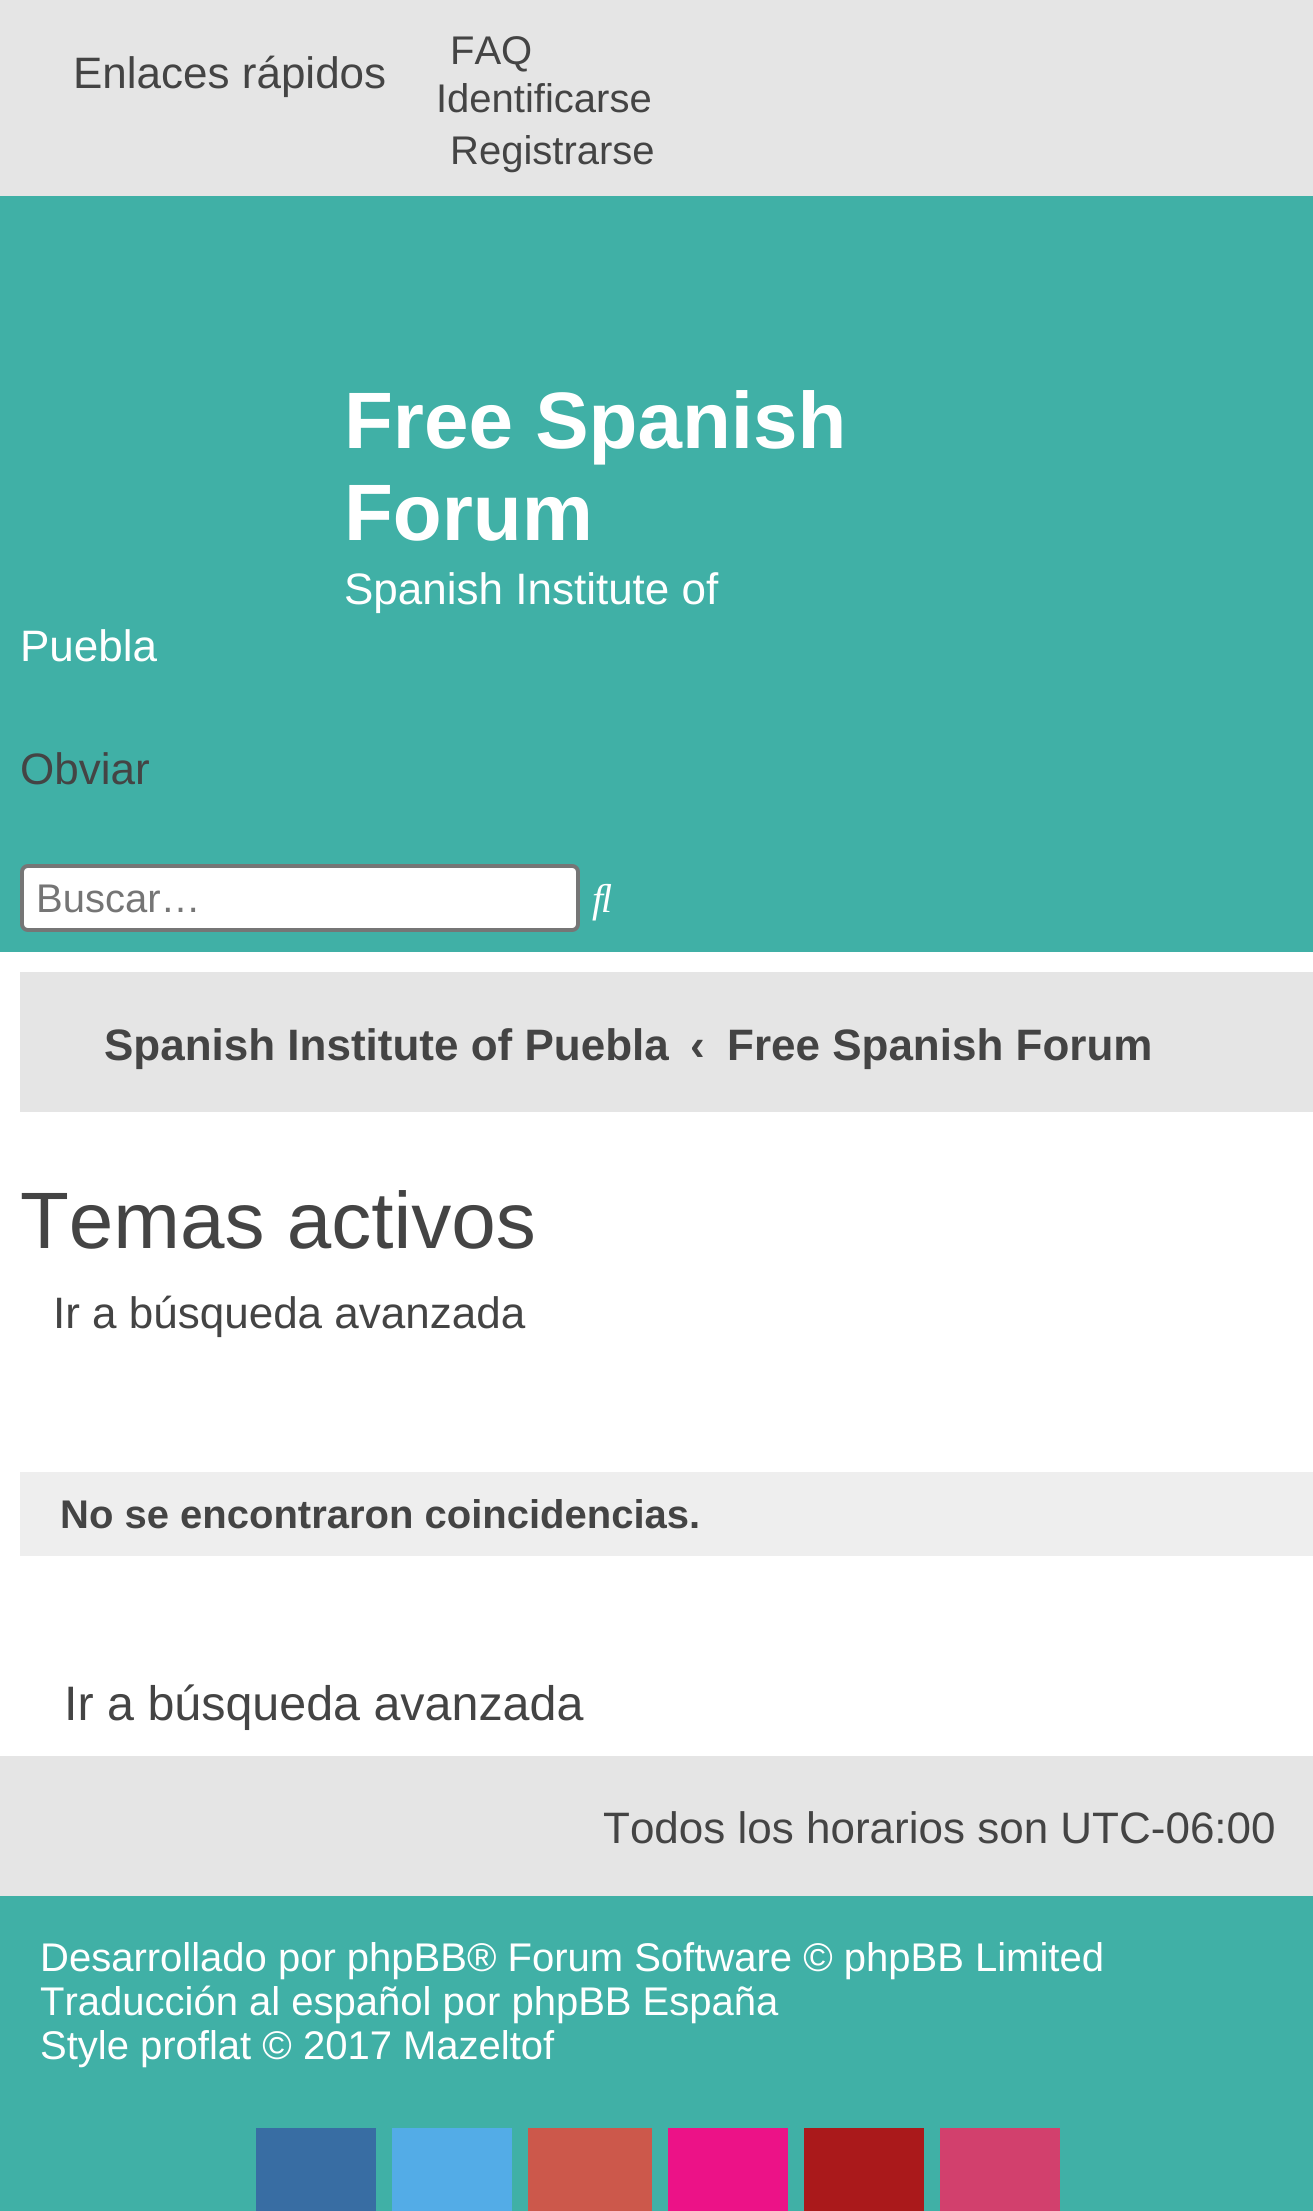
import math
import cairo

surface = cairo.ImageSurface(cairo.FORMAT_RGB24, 1313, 2211)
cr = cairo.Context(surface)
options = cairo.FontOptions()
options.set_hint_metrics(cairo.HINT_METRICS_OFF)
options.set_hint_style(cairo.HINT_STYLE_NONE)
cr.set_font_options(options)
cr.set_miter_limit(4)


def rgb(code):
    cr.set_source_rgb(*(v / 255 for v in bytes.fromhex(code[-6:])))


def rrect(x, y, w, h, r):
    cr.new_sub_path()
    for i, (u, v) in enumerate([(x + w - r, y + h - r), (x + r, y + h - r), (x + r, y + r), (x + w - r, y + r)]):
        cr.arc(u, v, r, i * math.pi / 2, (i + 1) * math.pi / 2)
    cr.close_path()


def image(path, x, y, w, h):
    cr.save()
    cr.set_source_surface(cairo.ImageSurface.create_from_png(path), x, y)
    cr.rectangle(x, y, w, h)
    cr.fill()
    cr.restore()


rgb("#ffffff")
cr.paint()
rgb("#e5e5e5")
cr.rectangle(0, 0, 1313, 196)
cr.fill()
rgb("#40b0a6")
cr.rectangle(0, 196, 1313, 756)
cr.fill()
rgb("#ffffff")
rrect(22, 866, 556, 64, 6)
cr.fill_preserve()
rgb("#767676")
cr.set_line_width(4)
cr.stroke()
image("img/1.png", 592, 883, 20, 38)
for x, y, w, h, color in [
    (20, 972, 1293, 140, "#e5e5e5"),
    (20, 1472, 1293, 84, "#eeeeee"),
    (0, 1756, 1313, 140, "#e5e5e5"),
    (0, 1896, 1313, 315, "#40b0a6"),
    (256, 2128, 120, 83, "#386da3"),
    (392, 2128, 120, 83, "#53ace7"),
    (528, 2128, 124, 83, "#cc584b"),
    (668, 2128, 120, 83, "#ec1287"),
    (804, 2128, 120, 83, "#aa191b"),
    (940, 2128, 120, 83, "#d2406d"),
]:
    rgb(color)
    cr.rectangle(x, y, w, h)
    cr.fill()
cr.select_font_face("Liberation Sans")
cr.set_font_size(44)
rgb("#444444")
cr.move_to(73, 88)
cr.show_text("Enlaces rápidos")
cr.set_font_size(40)
for x, y, s in [
    (450, 64, "FAQ"),
    (436, 112, "Identificarse"),
    (450, 164, "Registrarse"),
]:
    cr.move_to(x, y)
    cr.show_text(s)
cr.select_font_face("Liberation Sans", cairo.FONT_SLANT_NORMAL, cairo.FONT_WEIGHT_BOLD)
cr.set_font_size(80)
rgb("#ffffff")
cr.move_to(344, 448)
cr.show_text("Free Spanish")
cr.move_to(344, 540)
cr.show_text("Forum")
cr.select_font_face("Liberation Sans")
cr.set_font_size(44)
cr.move_to(344, 604)
cr.show_text("Spanish Institute of")
cr.move_to(20, 661)
cr.show_text("Puebla")
rgb("#444444")
cr.move_to(20, 784)
cr.show_text("Obviar")
cr.set_font_size(40)
rgb("#757575")
cr.move_to(36, 912)
cr.show_text("Buscar…")
cr.select_font_face("Liberation Sans", cairo.FONT_SLANT_NORMAL, cairo.FONT_WEIGHT_BOLD)
cr.set_font_size(44)
rgb("#444444")
for x, y, s in [
    (104, 1060, "Spanish Institute of Puebla"),
    (690, 1060, "‹"),
    (727, 1060, "Free Spanish Forum"),
]:
    cr.move_to(x, y)
    cr.show_text(s)
cr.select_font_face("Liberation Sans")
cr.set_font_size(80)
cr.move_to(20, 1248)
cr.show_text("Temas activos")
cr.set_font_size(44)
cr.move_to(53, 1328)
cr.show_text("Ir a búsqueda avanzada")
cr.select_font_face("Liberation Sans", cairo.FONT_SLANT_NORMAL, cairo.FONT_WEIGHT_BOLD)
cr.set_font_size(40)
cr.move_to(60, 1528)
cr.show_text("No se encontraron coincidencias.")
cr.select_font_face("Liberation Sans")
cr.set_font_size(48.4)
cr.move_to(64, 1720)
cr.show_text("Ir a búsqueda avanzada")
cr.set_font_size(44)
cr.move_to(603, 1843)
cr.show_text("Todos los horarios son UTC-06:00")
cr.set_font_size(40)
rgb("#ffffff")
for x, y, s in [
    (40, 1971, "Desarrollado por phpBB® Forum Software © phpBB Limited"),
    (40, 2015, "Traducción al español por phpBB España"),
    (40, 2059, "Style proflat © 2017 Mazeltof"),
]:
    cr.move_to(x, y)
    cr.show_text(s)
surface.write_to_png("page.png")
